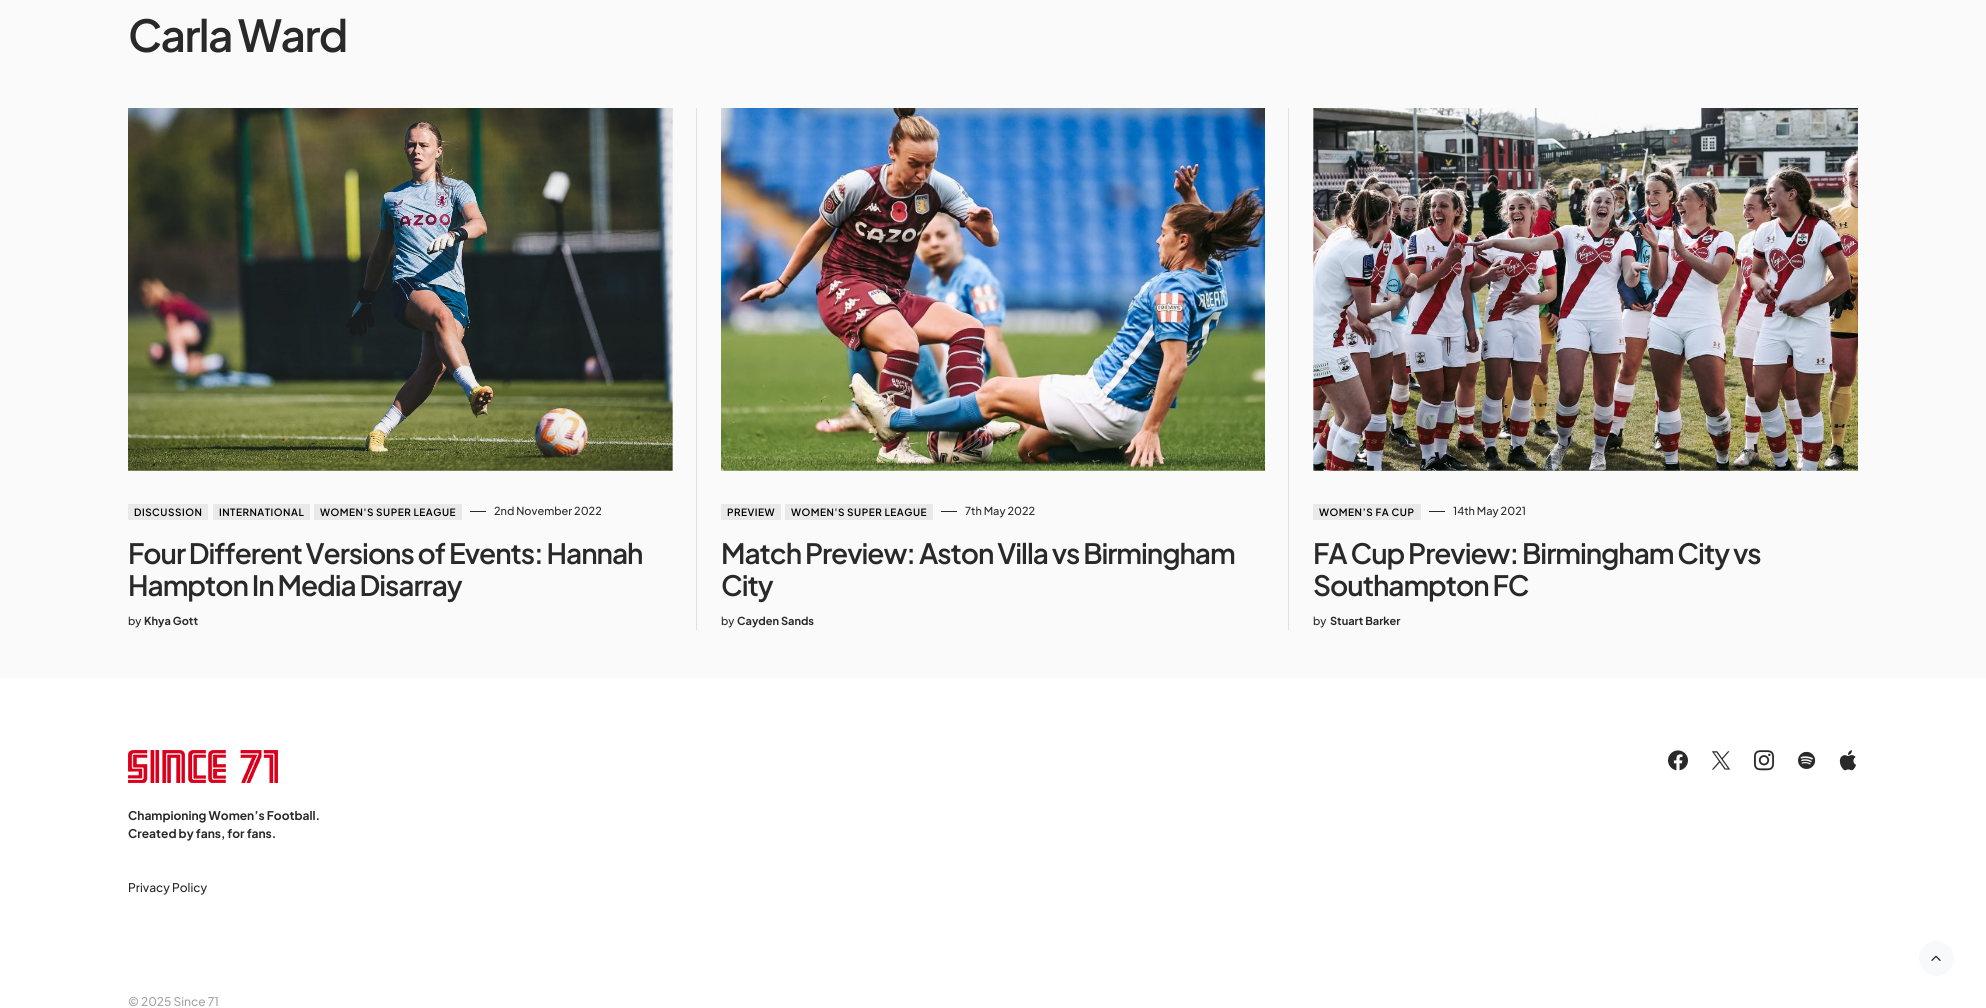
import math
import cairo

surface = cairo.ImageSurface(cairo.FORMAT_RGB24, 1986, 1008)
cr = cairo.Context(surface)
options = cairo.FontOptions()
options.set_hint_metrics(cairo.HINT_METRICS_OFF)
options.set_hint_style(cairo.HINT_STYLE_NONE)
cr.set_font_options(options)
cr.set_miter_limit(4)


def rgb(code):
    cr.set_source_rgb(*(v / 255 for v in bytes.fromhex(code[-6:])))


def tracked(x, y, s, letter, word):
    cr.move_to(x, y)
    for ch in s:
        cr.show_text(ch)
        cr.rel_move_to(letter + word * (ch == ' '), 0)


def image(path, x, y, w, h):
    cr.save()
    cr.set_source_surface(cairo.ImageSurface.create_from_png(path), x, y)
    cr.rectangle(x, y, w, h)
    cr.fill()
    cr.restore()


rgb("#fafafa")
cr.paint()
image("img/1.png", 128, 108, 545, 363)
for x, y, w, h, color in [
    (128, 504, 80, 16, "#e9e9eb"),
    (213, 504, 97, 16, "#e9e9eb"),
    (314, 504, 148, 16, "#e9e9eb"),
    (470, 511, 16, 1, "#292929"),
    (696, 108, 1, 522, "#dee2e6"),
]:
    rgb(color)
    cr.rectangle(x, y, w, h)
    cr.fill()
image("img/2.png", 721, 108, 544, 363)
for x, y, w, h, color in [
    (721, 504, 60, 16, "#e9e9eb"),
    (785, 504, 148, 16, "#e9e9eb"),
    (941, 511, 16, 1, "#292929"),
    (1288, 108, 1, 522, "#dee2e6"),
]:
    rgb(color)
    cr.rectangle(x, y, w, h)
    cr.fill()
image("img/3.png", 1313, 108, 545, 363)
for x, y, w, h, color in [
    (1313, 504, 108, 16, "#e9e9eb"),
    (1429, 511, 16, 1, "#292929"),
    (0, 678, 1986, 330, "#ffffff"),
]:
    rgb(color)
    cr.rectangle(x, y, w, h)
    cr.fill()
image("img/4.png", 1668, 750, 20, 21)
image("img/5.png", 1712, 751, 18, 19)
image("img/6.png", 1754, 750, 20, 21)
image("img/7.png", 1798, 751, 18, 18)
image("img/8.png", 1839, 750, 17, 21)
image("img/9.png", 128, 750, 150, 33)
rgb("#f8f9fa")
cr.arc(1936.5, 958.5, 17.5, 0, 2 * math.pi)
cr.fill()
image("img/10.png", 1931, 955, 10, 6)
cr.select_font_face("Plus Jakarta Sans SemiBold")
cr.set_font_size(44)
rgb("#292929")
tracked(128, 52, "Carla Ward", -1.6, 0)
cr.set_font_size(10)
rgb("#000000")
for x, y, s in [
    (134, 516, "DISCUSSION"),
    (219, 516, "INTERNATIONAL"),
    (320, 516, "WOMEN'S SUPER LEAGUE"),
]:
    tracked(x, y, s, 0.5, 0)
cr.select_font_face("Plus Jakarta Sans Medium")
cr.set_font_size(11)
rgb("#292929")
cr.move_to(494, 515)
cr.show_text("2nd November 2022")
cr.select_font_face("Plus Jakarta Sans SemiBold")
cr.set_font_size(28)
tracked(128, 564, "Four Different Versions of Events: Hannah", -1.05, 0)
tracked(128, 596, "Hampton In Media Disarray", -1.05, 0)
cr.select_font_face("Plus Jakarta Sans Medium")
cr.set_font_size(11)
cr.move_to(128, 625)
cr.show_text("by")
cr.select_font_face("Plus Jakarta Sans", cairo.FONT_SLANT_NORMAL, cairo.FONT_WEIGHT_BOLD)
cr.move_to(144, 625)
cr.show_text("Khya Gott")
cr.select_font_face("Plus Jakarta Sans SemiBold")
cr.set_font_size(10)
rgb("#000000")
tracked(727, 516, "PREVIEW", 0.5, 0)
tracked(791, 516, "WOMEN'S SUPER LEAGUE", 0.5, 0)
cr.select_font_face("Plus Jakarta Sans Medium")
cr.set_font_size(11)
rgb("#292929")
cr.move_to(965, 515)
cr.show_text("7th May 2022")
cr.select_font_face("Plus Jakarta Sans SemiBold")
cr.set_font_size(28)
tracked(721, 564, "Match Preview: Aston Villa vs Birmingham", -1.05, 0)
tracked(721, 596, "City", -1.05, 0)
cr.select_font_face("Plus Jakarta Sans Medium")
cr.set_font_size(11)
cr.move_to(721, 625)
cr.show_text("by")
cr.select_font_face("Plus Jakarta Sans", cairo.FONT_SLANT_NORMAL, cairo.FONT_WEIGHT_BOLD)
cr.move_to(737, 625)
cr.show_text("Cayden Sands")
cr.select_font_face("Plus Jakarta Sans SemiBold")
cr.set_font_size(10)
rgb("#000000")
tracked(1319, 516, "WOMEN’S FA CUP", 0.5, 0)
cr.select_font_face("Plus Jakarta Sans Medium")
cr.set_font_size(11)
rgb("#292929")
cr.move_to(1453, 515)
cr.show_text("14th May 2021")
cr.select_font_face("Plus Jakarta Sans SemiBold")
cr.set_font_size(28)
tracked(1313, 564, "FA Cup Preview: Birmingham City vs", -1.05, 0)
tracked(1313, 596, "Southampton FC", -1.05, 0)
cr.select_font_face("Plus Jakarta Sans Medium")
cr.set_font_size(11)
cr.move_to(1313, 625)
cr.show_text("by")
cr.select_font_face("Plus Jakarta Sans", cairo.FONT_SLANT_NORMAL, cairo.FONT_WEIGHT_BOLD)
cr.move_to(1330, 625)
cr.show_text("Stuart Barker")
cr.set_font_size(12)
cr.move_to(128, 820)
cr.show_text("Championing Women’s Football.")
cr.move_to(128, 838)
cr.show_text("Created by fans, for fans.")
cr.select_font_face("Plus Jakarta Sans Medium")
cr.move_to(128, 892)
cr.show_text("Privacy Policy")
rgb("#a3a3a3")
cr.move_to(128, 1006)
cr.show_text("© 2025 Since 71")
surface.write_to_png("page.png")
